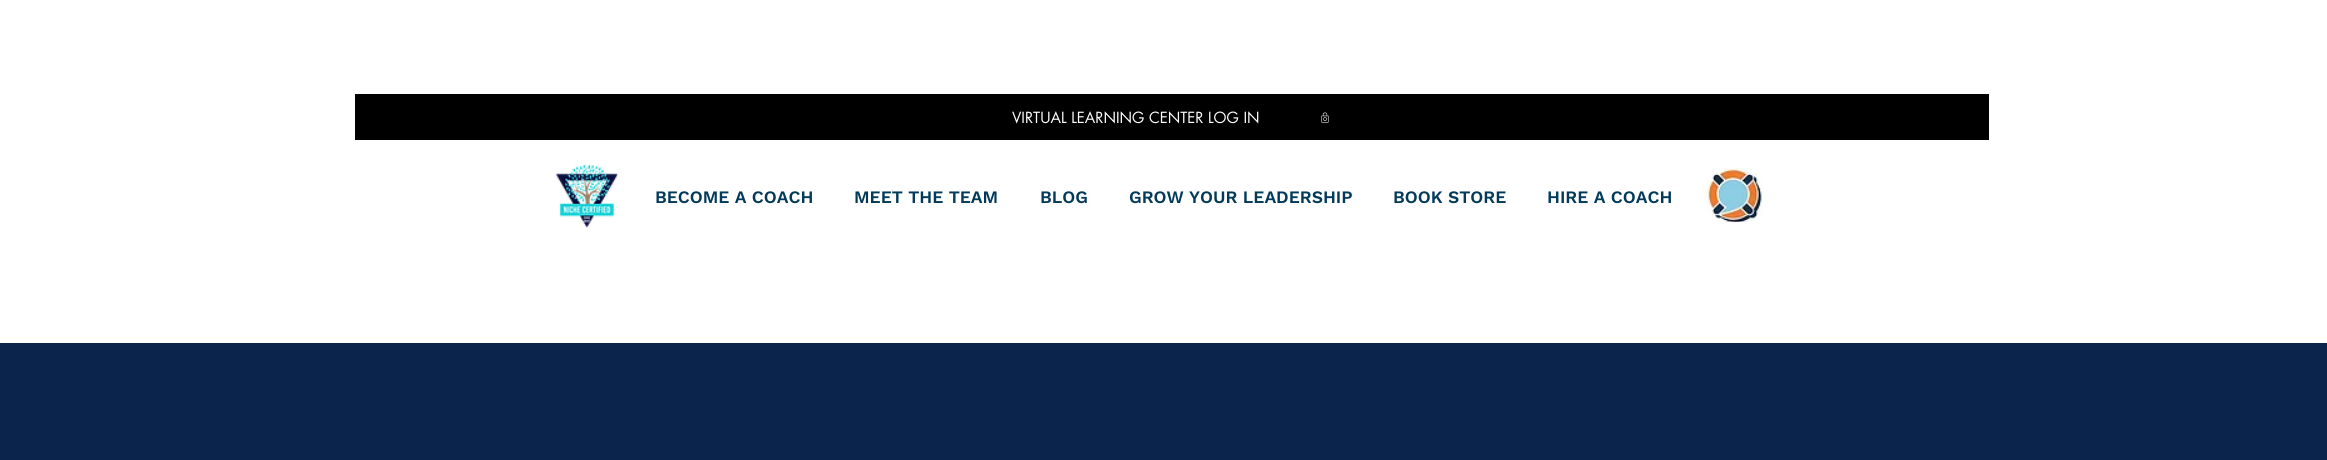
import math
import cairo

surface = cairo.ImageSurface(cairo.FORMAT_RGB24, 2327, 460)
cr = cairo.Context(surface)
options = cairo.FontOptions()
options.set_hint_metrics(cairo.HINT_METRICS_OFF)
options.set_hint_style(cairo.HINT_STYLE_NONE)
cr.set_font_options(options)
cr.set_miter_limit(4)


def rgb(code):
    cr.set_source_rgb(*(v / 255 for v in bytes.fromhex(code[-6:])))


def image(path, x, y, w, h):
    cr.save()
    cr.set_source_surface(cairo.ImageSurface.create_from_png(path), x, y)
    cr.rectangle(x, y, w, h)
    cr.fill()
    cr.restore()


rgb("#ffffff")
cr.paint()
rgb("#000000")
cr.rectangle(355, 94, 1634, 46)
cr.fill()
image("img/1.png", 1321, 112, 8, 11)
image("img/2.png", 556, 165, 62, 63)
image("img/3.png", 1703, 168, 60, 55)
rgb("#0b244c")
cr.rectangle(0, 343, 2327, 117)
cr.fill()
cr.select_font_face("futura")
cr.set_font_size(15)
rgb("#ffffff")
cr.move_to(1012, 123)
cr.show_text("VIRTUAL LEARNING CENTER LOG IN")
cr.select_font_face("Work Sans SemiBold")
cr.set_font_size(17.5)
rgb("#023a59")
for x, y, s in [
    (655, 203, "BECOME A COACH"),
    (854, 203, "MEET THE TEAM"),
    (1040, 203, "BLOG"),
    (1129, 203, "GROW YOUR LEADERSHIP"),
    (1393, 203, "BOOK STORE"),
    (1547, 203, "HIRE A COACH"),
]:
    cr.move_to(x, y)
    cr.show_text(s)
surface.write_to_png("page.png")
